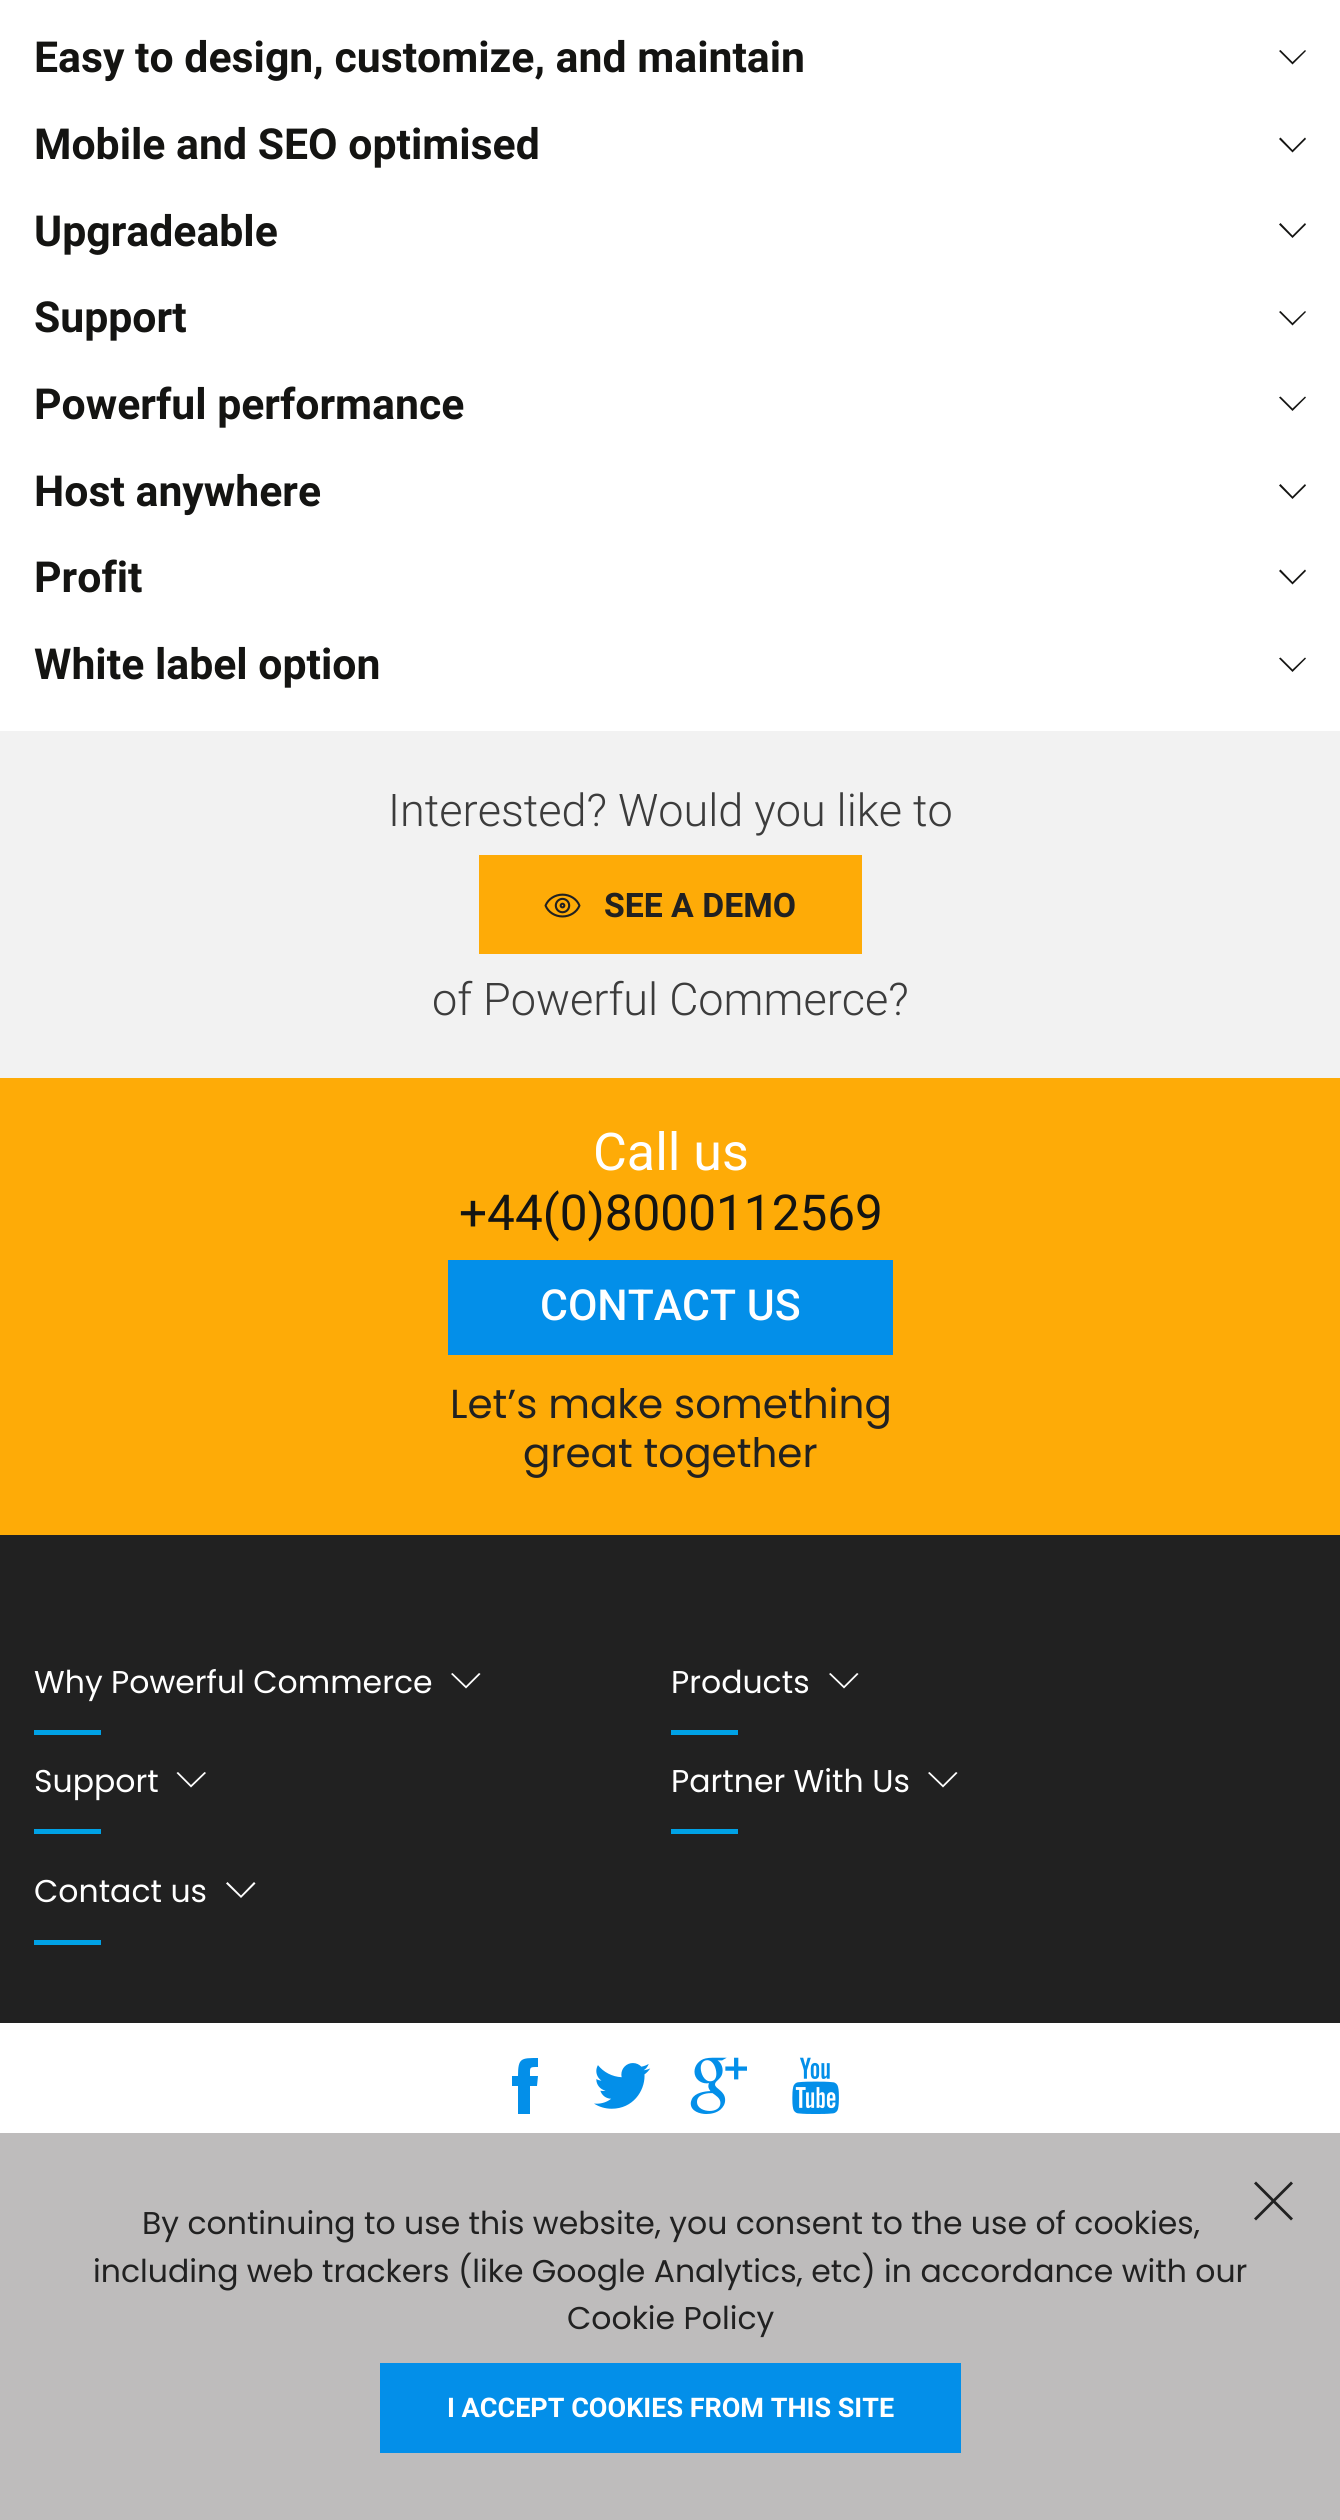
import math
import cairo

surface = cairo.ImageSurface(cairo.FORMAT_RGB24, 1340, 2520)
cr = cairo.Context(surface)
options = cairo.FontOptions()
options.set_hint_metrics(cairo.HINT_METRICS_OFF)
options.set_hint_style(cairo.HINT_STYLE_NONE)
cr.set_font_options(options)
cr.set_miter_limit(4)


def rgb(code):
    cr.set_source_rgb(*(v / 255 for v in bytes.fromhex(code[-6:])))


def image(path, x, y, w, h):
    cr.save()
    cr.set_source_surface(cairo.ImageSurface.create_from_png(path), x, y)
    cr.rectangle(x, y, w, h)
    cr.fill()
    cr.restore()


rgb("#ffffff")
cr.paint()
rgb("#141412")
cr.new_path()
cr.move_to(1306, 51)
cr.line_to(1292.5, 64.5)
cr.line_to(1279, 51)
cr.line_to(1280.5, 50)
cr.line_to(1292.5, 62)
cr.line_to(1305, 50)
cr.close_path()
cr.fill()
cr.new_path()
cr.move_to(1306, 139)
cr.line_to(1292.5, 152.5)
cr.line_to(1279, 139)
cr.line_to(1280.5, 137.5)
cr.line_to(1292.5, 150)
cr.line_to(1305, 137.5)
cr.close_path()
cr.fill()
cr.new_path()
cr.move_to(1306, 224.5)
cr.line_to(1292.5, 238)
cr.line_to(1279, 224.5)
cr.line_to(1280.5, 223)
cr.line_to(1292.5, 235.5)
cr.line_to(1305, 223)
cr.close_path()
cr.fill()
cr.new_path()
cr.move_to(1306, 312)
cr.line_to(1292.5, 325.5)
cr.line_to(1279, 312)
cr.line_to(1280.5, 311)
cr.line_to(1292.5, 323)
cr.line_to(1305, 311)
cr.close_path()
cr.fill()
cr.new_path()
cr.move_to(1306, 397.5)
cr.line_to(1292.5, 411)
cr.line_to(1279, 397.5)
cr.line_to(1280.5, 396.5)
cr.line_to(1292.5, 408.5)
cr.line_to(1305, 396.5)
cr.close_path()
cr.fill()
cr.new_path()
cr.move_to(1306, 485.5)
cr.line_to(1292.5, 499)
cr.line_to(1279, 485.5)
cr.line_to(1280.5, 484)
cr.line_to(1292.5, 496.5)
cr.line_to(1305, 484)
cr.close_path()
cr.fill()
cr.new_path()
cr.move_to(1306, 571)
cr.line_to(1292.5, 584.5)
cr.line_to(1279, 571)
cr.line_to(1280.5, 569.5)
cr.line_to(1292.5, 582)
cr.line_to(1305, 569.5)
cr.close_path()
cr.fill()
cr.new_path()
cr.move_to(1306, 658.5)
cr.line_to(1292.5, 672)
cr.line_to(1279, 658.5)
cr.line_to(1280.5, 657.5)
cr.line_to(1292.5, 669.5)
cr.line_to(1305, 657.5)
cr.close_path()
cr.fill()
rgb("#f2f2f2")
cr.rectangle(0, 731, 1340, 347)
cr.fill()
rgb("#feab07")
cr.rectangle(479, 855, 383, 99)
cr.fill()
image("img/1.png", 544, 893, 37, 25)
for x, y, w, h, color in [
    (0, 1078, 1340, 457, "#feab07"),
    (448, 1260, 445, 95, "#038fe9"),
    (0, 1535, 1340, 488, "#212121"),
]:
    rgb(color)
    cr.rectangle(x, y, w, h)
    cr.fill()
rgb("#ffffff")
cr.new_path()
cr.move_to(480.5, 1674)
cr.line_to(466, 1688.5)
cr.line_to(451, 1674)
cr.line_to(452.5, 1673)
cr.line_to(466, 1686)
cr.line_to(479, 1673)
cr.close_path()
cr.fill()
rgb("#00a2e6")
cr.rectangle(34, 1730, 67, 5)
cr.fill()
rgb("#ffffff")
cr.new_path()
cr.move_to(206, 1773)
cr.line_to(191, 1787.5)
cr.line_to(176.5, 1773)
cr.line_to(178, 1772)
cr.line_to(191, 1785)
cr.line_to(204.5, 1772)
cr.close_path()
cr.fill()
rgb("#00a2e6")
cr.rectangle(34, 1829, 67, 5)
cr.fill()
rgb("#ffffff")
cr.new_path()
cr.move_to(858.5, 1674)
cr.line_to(844, 1688.5)
cr.line_to(829, 1674)
cr.line_to(830.5, 1673)
cr.line_to(844, 1686)
cr.line_to(857, 1673)
cr.close_path()
cr.fill()
rgb("#00a2e6")
cr.rectangle(671, 1730, 67, 5)
cr.fill()
rgb("#ffffff")
cr.new_path()
cr.move_to(957.5, 1773)
cr.line_to(943, 1787.5)
cr.line_to(928, 1773)
cr.line_to(929.5, 1772)
cr.line_to(943, 1785)
cr.line_to(956, 1772)
cr.close_path()
cr.fill()
rgb("#00a2e6")
cr.rectangle(671, 1829, 67, 5)
cr.fill()
rgb("#ffffff")
cr.new_path()
cr.move_to(255.5, 1883.5)
cr.line_to(241, 1898)
cr.line_to(226, 1883.5)
cr.line_to(227.5, 1882)
cr.line_to(241, 1895.5)
cr.line_to(254, 1882)
cr.close_path()
cr.fill()
rgb("#00a2e6")
cr.rectangle(34, 1940, 67, 5)
cr.fill()
rgb("#038fe9")
cr.new_path()
cr.move_to(538, 2076)
cr.line_to(537, 2086)
cr.line_to(530, 2086)
cr.line_to(530, 2114)
cr.line_to(518, 2114)
cr.line_to(518, 2086)
cr.line_to(512, 2086)
cr.line_to(512, 2076)
cr.line_to(518, 2076)
cr.curve_to(518, 2058, 521, 2058, 538, 2058)
cr.line_to(538, 2067)
cr.curve_to(529, 2067, 530, 2067, 530, 2076)
cr.close_path()
cr.fill()
image("img/2.png", 594, 2063, 57, 46)
image("img/3.png", 690, 2057, 57, 57)
image("img/4.png", 792, 2057, 47, 57)
rgb("#bebcbc")
cr.rectangle(0, 2133, 1340, 387)
cr.fill()
rgb("#212121")
cr.new_path()
cr.move_to(1275.5, 2201)
cr.line_to(1293, 2218.5)
cr.line_to(1291, 2220.5)
cr.line_to(1273.5, 2203)
cr.line_to(1256, 2220.5)
cr.line_to(1254, 2218.5)
cr.line_to(1271.5, 2201)
cr.line_to(1254, 2183.5)
cr.line_to(1256, 2181.5)
cr.line_to(1273.5, 2199)
cr.line_to(1291, 2181.5)
cr.line_to(1293, 2183.5)
cr.close_path()
cr.fill()
rgb("#038fe9")
cr.rectangle(380, 2363, 581, 90)
cr.fill()
cr.select_font_face("Roboto", cairo.FONT_SLANT_NORMAL, cairo.FONT_WEIGHT_BOLD)
cr.set_font_size(42.75)
rgb("#141412")
for x, y, s in [
    (34, 72, "Easy to design, customize, and maintain"),
    (34, 159, "Mobile and SEO optimised"),
    (34, 246, "Upgradeable"),
    (34, 332, "Support"),
    (34, 419, "Powerful performance"),
    (34, 506, "Host anywhere"),
    (34, 592, "Profit"),
    (34, 679, "White label option"),
]:
    cr.move_to(x, y)
    cr.show_text(s)
cr.select_font_face("Roboto Light")
cr.set_font_size(45)
rgb("#3c3c3c")
cr.move_to(388, 826)
cr.show_text("Interested? Would you like to")
cr.select_font_face("Roboto", cairo.FONT_SLANT_NORMAL, cairo.FONT_WEIGHT_BOLD)
cr.set_font_size(33.75)
rgb("#212121")
cr.move_to(604, 917)
cr.show_text("SEE A DEMO")
cr.select_font_face("Roboto Light")
cr.set_font_size(45)
rgb("#3c3c3c")
cr.move_to(432, 1015)
cr.show_text("of Powerful Commerce?")
cr.select_font_face("Roboto")
cr.set_font_size(52)
rgb("#ffffff")
cr.move_to(593, 1170)
cr.show_text("Call us")
cr.set_font_size(49.5)
rgb("#141412")
cr.move_to(459, 1230)
cr.show_text("+44(0)8000112569")
cr.select_font_face("Roboto Medium")
cr.set_font_size(42.75)
rgb("#ffffff")
cr.move_to(540, 1320)
cr.show_text("CONTACT US")
cr.select_font_face("Poppins")
cr.set_font_size(40.5)
rgb("#212121")
cr.move_to(450, 1418)
cr.show_text("Let’s make something")
cr.move_to(523, 1467)
cr.show_text("great together")
cr.set_font_size(31.5)
rgb("#ffffff")
for x, y, s in [
    (34, 1693, "Why Powerful Commerce"),
    (34, 1792, "Support"),
    (671, 1693, "Products"),
    (671, 1792, "Partner With Us"),
    (34, 1902, "Contact us"),
]:
    cr.move_to(x, y)
    cr.show_text(s)
rgb("#212121")
for x, y, s in [
    (142, 2234, "By continuing to use this website, you consent to the use of cookies,"),
    (93, 2282, "including web trackers (like Google Analytics, etc) in accordance with our"),
    (567, 2329, "Cookie Policy"),
]:
    cr.move_to(x, y)
    cr.show_text(s)
cr.select_font_face("Roboto", cairo.FONT_SLANT_NORMAL, cairo.FONT_WEIGHT_BOLD)
cr.set_font_size(27)
rgb("#ffffff")
cr.move_to(447, 2417)
cr.show_text("I ACCEPT COOKIES FROM THIS SITE")
surface.write_to_png("page.png")
